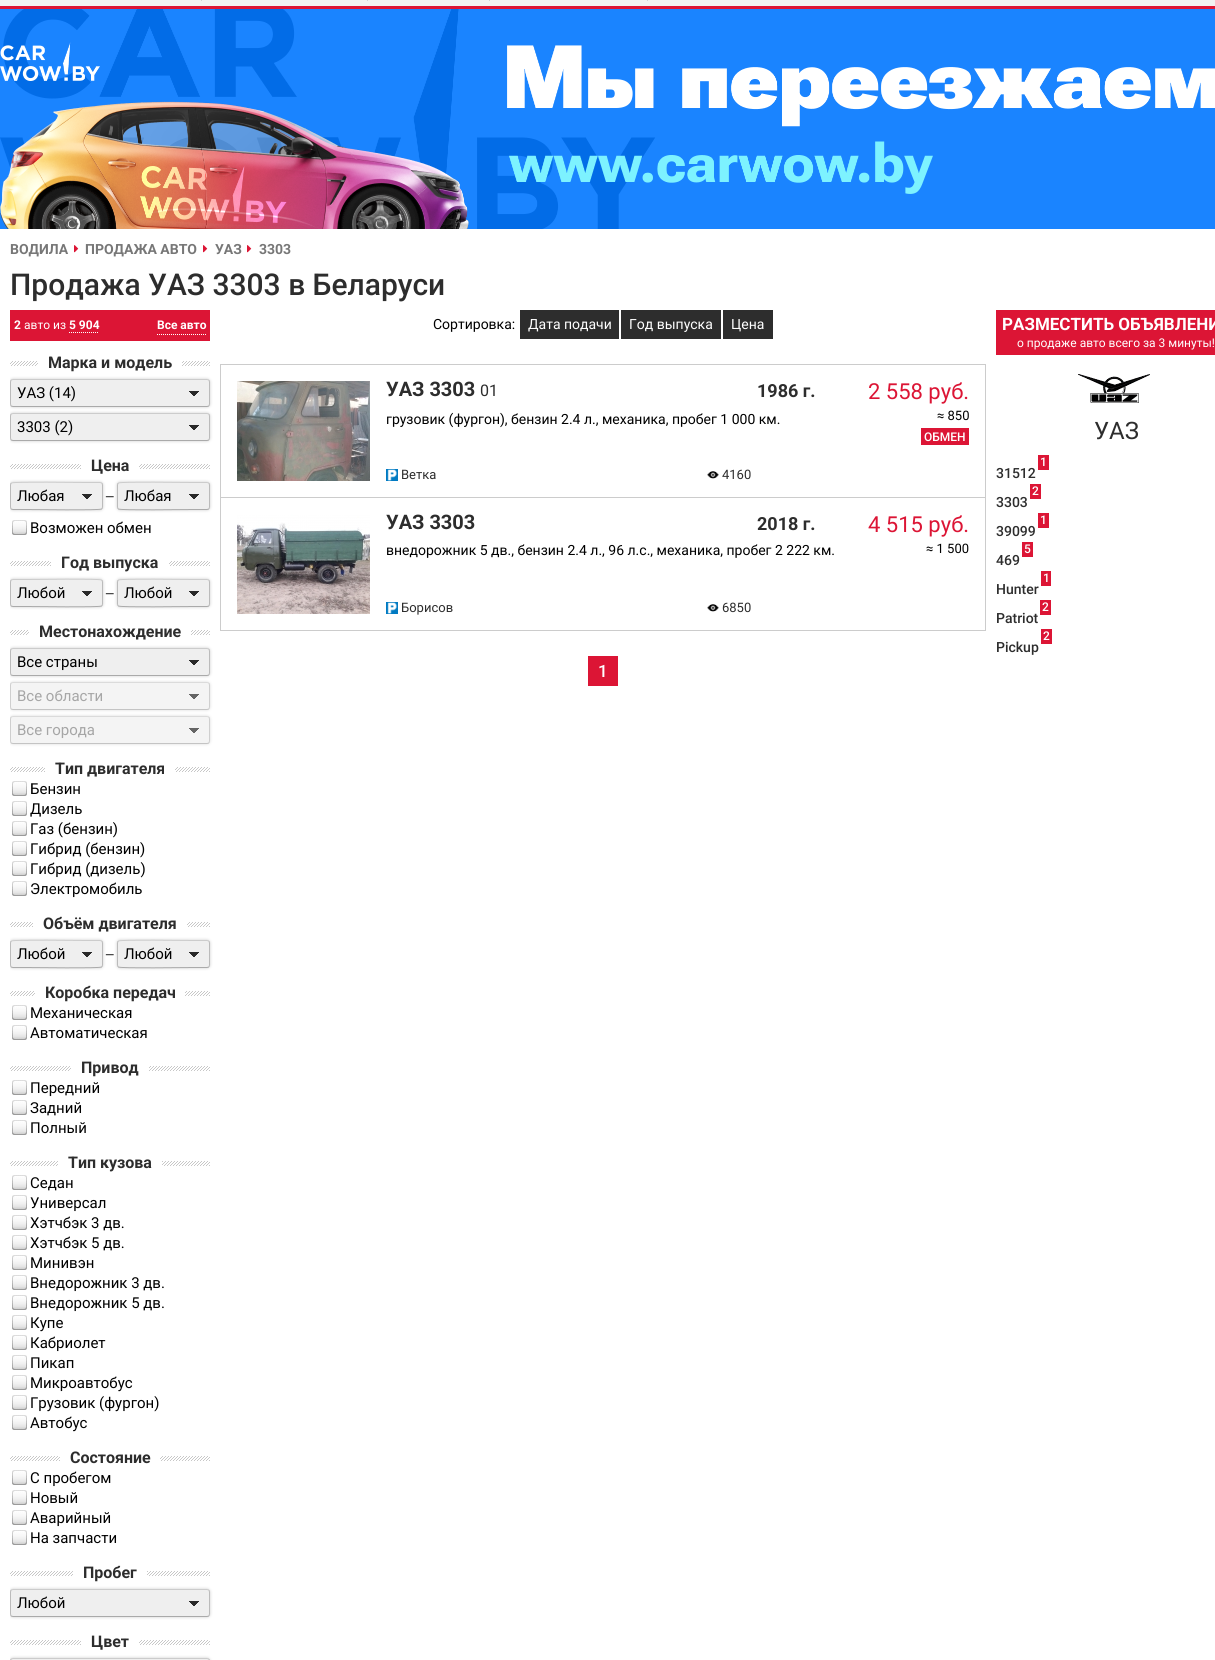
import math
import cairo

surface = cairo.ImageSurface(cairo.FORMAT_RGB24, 1215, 1660)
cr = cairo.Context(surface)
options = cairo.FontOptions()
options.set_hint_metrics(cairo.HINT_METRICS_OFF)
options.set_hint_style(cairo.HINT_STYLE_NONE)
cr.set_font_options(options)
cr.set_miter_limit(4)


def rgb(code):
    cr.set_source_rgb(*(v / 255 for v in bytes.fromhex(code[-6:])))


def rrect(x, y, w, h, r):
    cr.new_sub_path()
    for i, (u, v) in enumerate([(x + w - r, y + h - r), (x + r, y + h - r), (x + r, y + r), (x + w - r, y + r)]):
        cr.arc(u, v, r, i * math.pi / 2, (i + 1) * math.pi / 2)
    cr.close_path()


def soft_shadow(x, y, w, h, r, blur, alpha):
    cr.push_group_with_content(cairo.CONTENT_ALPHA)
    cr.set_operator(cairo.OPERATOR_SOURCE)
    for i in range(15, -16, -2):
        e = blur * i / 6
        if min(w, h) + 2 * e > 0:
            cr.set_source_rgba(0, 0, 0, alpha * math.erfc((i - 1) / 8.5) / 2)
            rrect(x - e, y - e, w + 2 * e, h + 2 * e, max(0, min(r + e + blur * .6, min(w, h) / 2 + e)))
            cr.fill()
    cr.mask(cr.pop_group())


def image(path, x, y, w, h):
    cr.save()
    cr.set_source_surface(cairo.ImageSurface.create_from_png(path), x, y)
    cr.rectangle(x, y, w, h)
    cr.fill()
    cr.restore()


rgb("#ffffff")
cr.paint()
for x, y, w, h, color in [
    (0, 0, 1215, 6, "#f2f2f2"),
    (0, 6, 1215, 3, "#dc1535"),
    (201, 0, 1, 1, "#d1d1d1"),
    (367, 0, 1, 1, "#d1d1d1"),
    (489, 0, 1, 1, "#d1d1d1"),
    (647, 0, 1, 1, "#d1d1d1"),
]:
    rgb(color)
    cr.rectangle(x, y, w, h)
    cr.fill()
image("img/1.png", 0, 9, 1215, 220)
image("img/2.png", 74, 245, 5, 8)
image("img/2.png", 203, 245, 5, 8)
image("img/2.png", 247, 245, 5, 8)
rgb("#dc1535")
cr.rectangle(10, 310, 200, 31)
cr.fill()
cr.new_path()
cr.move_to(69, 332.5)
cr.line_to(99, 332.5)
rgb("#ffffff")
cr.set_line_width(1)
cr.set_dash([1, 1])
cr.stroke()
cr.new_path()
cr.move_to(157, 334.5)
cr.line_to(206, 334.5)
cr.stroke()
image("img/3.png", 10, 361, 200, 5)
cr.rectangle(38, 361, 144, 5)
cr.fill()
cr.save()
cr.rectangle(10, 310, 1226, 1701)
cr.clip()
rgb("#cccccc")
soft_shadow(10, 379, 200, 28, 3, 1.5, 1)
cr.restore()
rgb("#efefef")
rrect(10, 379, 200, 28, 3)
cr.fill()
image("img/4.png", 189, 391, 10, 5)
cr.new_path()
cr.move_to(11, 380)
cr.line_to(13, 379.5)
cr.line_to(207, 379.5)
cr.line_to(209, 380)
rgb("#cccccc")
cr.set_dash([])
cr.stroke()
cr.new_path()
cr.move_to(209, 380)
cr.curve_to(209, 380.5, 209.5, 381.5, 209.5, 382)
cr.line_to(209.5, 404)
cr.curve_to(209.5, 404.5, 209, 405.5, 209, 406)
rgb("#bbbbbb")
cr.stroke()
cr.new_path()
cr.move_to(209, 406)
cr.line_to(207, 406.5)
cr.line_to(13, 406.5)
cr.line_to(11, 406)
rgb("#aaaaaa")
cr.stroke()
cr.new_path()
cr.move_to(11, 406)
cr.curve_to(11, 405.5, 10.5, 404.5, 10.5, 404)
cr.line_to(10.5, 382)
cr.curve_to(10.5, 381.5, 11, 380.5, 11, 380)
rgb("#bbbbbb")
cr.stroke()
cr.save()
cr.rectangle(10, 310, 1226, 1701)
cr.clip()
rgb("#cccccc")
soft_shadow(10, 413, 200, 28, 3, 1.5, 1)
cr.restore()
rgb("#efefef")
rrect(10, 413, 200, 28, 3)
cr.fill()
image("img/4.png", 189, 425, 10, 5)
cr.new_path()
cr.move_to(11, 414)
cr.line_to(13, 413.5)
cr.line_to(207, 413.5)
cr.line_to(209, 414)
rgb("#cccccc")
cr.stroke()
cr.new_path()
cr.move_to(209, 414)
cr.curve_to(209, 414.5, 209.5, 415.5, 209.5, 416)
cr.line_to(209.5, 438)
cr.curve_to(209.5, 438.5, 209, 439.5, 209, 440)
rgb("#bbbbbb")
cr.stroke()
cr.new_path()
cr.move_to(209, 440)
cr.line_to(207, 440.5)
cr.line_to(13, 440.5)
cr.line_to(11, 440)
rgb("#aaaaaa")
cr.stroke()
cr.new_path()
cr.move_to(11, 440)
cr.curve_to(11, 439.5, 10.5, 438.5, 10.5, 438)
cr.line_to(10.5, 416)
cr.curve_to(10.5, 415.5, 11, 414.5, 11, 414)
rgb("#bbbbbb")
cr.stroke()
image("img/3.png", 10, 464, 200, 5)
rgb("#ffffff")
cr.rectangle(81, 464, 58, 5)
cr.fill()
cr.save()
cr.rectangle(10, 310, 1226, 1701)
cr.clip()
rgb("#cccccc")
soft_shadow(10, 482, 93, 28, 3, 1.5, 1)
cr.restore()
rgb("#efefef")
rrect(10, 482, 93, 28, 3)
cr.fill()
image("img/4.png", 82, 494, 10, 5)
cr.new_path()
cr.move_to(11, 483)
cr.line_to(11.5, 483)
cr.curve_to(13.5, 481.5, 78, 482.5, 85.5, 482.5)
cr.line_to(100, 482.5)
cr.line_to(102, 483)
rgb("#cccccc")
cr.stroke()
cr.new_path()
cr.move_to(102, 483)
cr.curve_to(102, 483.5, 102.5, 484.5, 102.5, 485)
cr.line_to(102.5, 507)
cr.curve_to(102.5, 507.5, 102, 508.5, 102, 509)
rgb("#bbbbbb")
cr.stroke()
cr.new_path()
cr.move_to(102, 509)
cr.line_to(101.5, 509)
cr.curve_to(99.5, 510.5, 35, 509.5, 27.5, 509.5)
cr.line_to(13, 509.5)
cr.line_to(11, 509)
rgb("#aaaaaa")
cr.stroke()
cr.new_path()
cr.move_to(11, 509)
cr.curve_to(11, 508.5, 10.5, 507.5, 10.5, 507)
cr.line_to(10.5, 485)
cr.curve_to(10.5, 484.5, 11, 483.5, 11, 483)
rgb("#bbbbbb")
cr.stroke()
rgb("#cccccc")
soft_shadow(117, 482, 93, 28, 3, 1.5, 1)
rgb("#efefef")
rrect(117, 482, 93, 28, 3)
cr.fill()
image("img/4.png", 189, 494, 10, 5)
cr.new_path()
cr.move_to(118, 483)
cr.line_to(118.5, 483)
cr.curve_to(120.5, 481.5, 185, 482.5, 192.5, 482.5)
cr.line_to(207, 482.5)
cr.line_to(209, 483)
rgb("#cccccc")
cr.stroke()
cr.new_path()
cr.move_to(209, 483)
cr.curve_to(209, 483.5, 209.5, 484.5, 209.5, 485)
cr.line_to(209.5, 507)
cr.curve_to(209.5, 507.5, 209, 508.5, 209, 509)
rgb("#bbbbbb")
cr.stroke()
cr.new_path()
cr.move_to(209, 509)
cr.line_to(207, 509.5)
cr.line_to(192.5, 509.5)
cr.curve_to(185, 509.5, 120.5, 510.5, 118.5, 509)
cr.line_to(118, 509)
rgb("#aaaaaa")
cr.stroke()
cr.new_path()
cr.move_to(118, 509)
cr.curve_to(118, 508.5, 117.5, 507.5, 117.5, 507)
cr.line_to(117.5, 485)
cr.curve_to(117.5, 484.5, 118, 483.5, 118, 483)
rgb("#bbbbbb")
cr.stroke()
image("img/5.png", 12, 520, 15, 15)
image("img/3.png", 10, 561, 200, 5)
rgb("#ffffff")
cr.rectangle(51, 561, 118, 5)
cr.fill()
cr.save()
cr.rectangle(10, 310, 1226, 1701)
cr.clip()
rgb("#cccccc")
soft_shadow(10, 579, 93, 28, 3, 1.5, 1)
cr.restore()
rgb("#efefef")
rrect(10, 579, 93, 28, 3)
cr.fill()
image("img/4.png", 82, 591, 10, 5)
cr.new_path()
cr.move_to(11, 580)
cr.line_to(13, 579.5)
cr.line_to(27.5, 579.5)
cr.curve_to(35, 579.5, 99.5, 578.5, 101.5, 580)
cr.line_to(102, 580)
rgb("#cccccc")
cr.stroke()
cr.new_path()
cr.move_to(102, 580)
cr.curve_to(102, 580.5, 102.5, 581.5, 102.5, 582)
cr.line_to(102.5, 604)
cr.curve_to(102.5, 604.5, 102, 605.5, 102, 606)
rgb("#bbbbbb")
cr.stroke()
cr.new_path()
cr.move_to(102, 606)
cr.line_to(101.5, 606)
cr.curve_to(99.5, 607.5, 35, 606.5, 27.5, 606.5)
cr.line_to(13, 606.5)
cr.line_to(11, 606)
rgb("#aaaaaa")
cr.stroke()
cr.new_path()
cr.move_to(11, 606)
cr.curve_to(11, 605.5, 10.5, 604.5, 10.5, 604)
cr.line_to(10.5, 582)
cr.curve_to(10.5, 581.5, 11, 580.5, 11, 580)
rgb("#bbbbbb")
cr.stroke()
rgb("#cccccc")
soft_shadow(117, 579, 93, 28, 3, 1.5, 1)
rgb("#efefef")
rrect(117, 579, 93, 28, 3)
cr.fill()
image("img/4.png", 189, 591, 10, 5)
cr.new_path()
cr.move_to(118, 580)
cr.line_to(118.5, 580)
cr.curve_to(120.5, 578.5, 185, 579.5, 192.5, 579.5)
cr.line_to(207, 579.5)
cr.line_to(209, 580)
rgb("#cccccc")
cr.stroke()
cr.new_path()
cr.move_to(209, 580)
cr.curve_to(209, 580.5, 209.5, 581.5, 209.5, 582)
cr.line_to(209.5, 604)
cr.curve_to(209.5, 604.5, 209, 605.5, 209, 606)
rgb("#bbbbbb")
cr.stroke()
cr.new_path()
cr.move_to(209, 606)
cr.line_to(207, 606.5)
cr.line_to(192.5, 606.5)
cr.curve_to(185, 606.5, 120.5, 607.5, 118.5, 606)
cr.line_to(118, 606)
rgb("#aaaaaa")
cr.stroke()
cr.new_path()
cr.move_to(118, 606)
cr.curve_to(118, 605.5, 117.5, 604.5, 117.5, 604)
cr.line_to(117.5, 582)
cr.curve_to(117.5, 581.5, 118, 580.5, 118, 580)
rgb("#bbbbbb")
cr.stroke()
image("img/3.png", 10, 630, 200, 5)
rgb("#ffffff")
cr.rectangle(29, 630, 162, 5)
cr.fill()
cr.save()
cr.rectangle(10, 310, 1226, 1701)
cr.clip()
rgb("#cccccc")
soft_shadow(10, 648, 200, 28, 3, 1.5, 1)
cr.restore()
rgb("#efefef")
rrect(10, 648, 200, 28, 3)
cr.fill()
image("img/4.png", 189, 660, 10, 5)
cr.new_path()
cr.move_to(11, 649)
cr.line_to(13, 648.5)
cr.line_to(207, 648.5)
cr.line_to(209, 649)
rgb("#cccccc")
cr.stroke()
cr.new_path()
cr.move_to(209, 649)
cr.curve_to(209, 649.5, 209.5, 650.5, 209.5, 651)
cr.line_to(209.5, 673)
cr.curve_to(209.5, 673.5, 209, 674.5, 209, 675)
rgb("#bbbbbb")
cr.stroke()
cr.new_path()
cr.move_to(209, 675)
cr.line_to(207, 675.5)
cr.line_to(13, 675.5)
cr.line_to(11, 675)
rgb("#aaaaaa")
cr.stroke()
cr.new_path()
cr.move_to(11, 675)
cr.curve_to(11, 674.5, 10.5, 673.5, 10.5, 673)
cr.line_to(10.5, 651)
cr.curve_to(10.5, 650.5, 11, 649.5, 11, 649)
rgb("#bbbbbb")
cr.stroke()
cr.save()
cr.rectangle(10, 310, 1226, 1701)
cr.clip()
rgb("#dbdbdb")
soft_shadow(10, 682, 200, 28, 3, 1.5, 1)
cr.restore()
rgb("#f4f4f4")
rrect(10, 682, 200, 28, 3)
cr.fill()
image("img/6.png", 189, 694, 10, 5)
cr.new_path()
cr.move_to(11, 683)
cr.line_to(13, 682.5)
cr.line_to(207, 682.5)
cr.line_to(209, 683)
rgb("#dbdbdb")
cr.stroke()
cr.new_path()
cr.move_to(209, 683)
cr.curve_to(209, 683.5, 209.5, 684.5, 209.5, 685)
cr.line_to(209.5, 707)
cr.curve_to(209.5, 707.5, 209, 708.5, 209, 709)
rgb("#cfcfcf")
cr.stroke()
cr.new_path()
cr.move_to(209, 709)
cr.line_to(207, 709.5)
cr.line_to(13, 709.5)
cr.line_to(11, 709)
rgb("#c4c4c4")
cr.stroke()
cr.new_path()
cr.move_to(11, 709)
cr.curve_to(11, 708.5, 10.5, 707.5, 10.5, 707)
cr.line_to(10.5, 685)
cr.curve_to(10.5, 684.5, 11, 683.5, 11, 683)
rgb("#cfcfcf")
cr.stroke()
cr.save()
cr.rectangle(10, 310, 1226, 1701)
cr.clip()
rgb("#dbdbdb")
soft_shadow(10, 716, 200, 28, 3, 1.5, 1)
cr.restore()
rgb("#f4f4f4")
rrect(10, 716, 200, 28, 3)
cr.fill()
image("img/6.png", 189, 728, 10, 5)
cr.new_path()
cr.move_to(11, 717)
cr.line_to(13, 716.5)
cr.line_to(207, 716.5)
cr.line_to(209, 717)
rgb("#dbdbdb")
cr.stroke()
cr.new_path()
cr.move_to(209, 717)
cr.curve_to(209, 717.5, 209.5, 718.5, 209.5, 719)
cr.line_to(209.5, 741)
cr.curve_to(209.5, 741.5, 209, 742.5, 209, 743)
rgb("#cfcfcf")
cr.stroke()
cr.new_path()
cr.move_to(209, 743)
cr.line_to(207, 743.5)
cr.line_to(13, 743.5)
cr.line_to(11, 743)
rgb("#c4c4c4")
cr.stroke()
cr.new_path()
cr.move_to(11, 743)
cr.curve_to(11, 742.5, 10.5, 741.5, 10.5, 741)
cr.line_to(10.5, 719)
cr.curve_to(10.5, 718.5, 11, 717.5, 11, 717)
rgb("#cfcfcf")
cr.stroke()
image("img/3.png", 10, 767, 200, 5)
rgb("#ffffff")
cr.rectangle(45, 767, 130, 5)
cr.fill()
image("img/5.png", 12, 781, 15, 15)
image("img/5.png", 12, 801, 15, 15)
image("img/5.png", 12, 821, 15, 15)
image("img/5.png", 12, 841, 15, 15)
image("img/5.png", 12, 861, 15, 15)
image("img/5.png", 12, 881, 15, 15)
image("img/3.png", 10, 922, 200, 5)
cr.rectangle(33, 922, 154, 5)
cr.fill()
cr.save()
cr.rectangle(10, 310, 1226, 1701)
cr.clip()
rgb("#cccccc")
soft_shadow(10, 940, 93, 28, 3, 1.5, 1)
cr.restore()
rgb("#efefef")
rrect(10, 940, 93, 28, 3)
cr.fill()
image("img/4.png", 82, 952, 10, 5)
cr.new_path()
cr.move_to(11, 941)
cr.line_to(11.5, 941)
cr.curve_to(13.5, 939.5, 78, 940.5, 85.5, 940.5)
cr.line_to(100, 940.5)
cr.line_to(102, 941)
rgb("#cccccc")
cr.stroke()
cr.new_path()
cr.move_to(102, 941)
cr.curve_to(102, 941.5, 102.5, 942.5, 102.5, 943)
cr.line_to(102.5, 965)
cr.curve_to(102.5, 965.5, 102, 966.5, 102, 967)
rgb("#bbbbbb")
cr.stroke()
cr.new_path()
cr.move_to(102, 967)
cr.line_to(101.5, 967)
cr.curve_to(99.5, 968.5, 35, 967.5, 27.5, 967.5)
cr.line_to(13, 967.5)
cr.line_to(11, 967)
rgb("#aaaaaa")
cr.stroke()
cr.new_path()
cr.move_to(11, 967)
cr.curve_to(11, 966.5, 10.5, 965.5, 10.5, 965)
cr.line_to(10.5, 943)
cr.curve_to(10.5, 942.5, 11, 941.5, 11, 941)
rgb("#bbbbbb")
cr.stroke()
rgb("#cccccc")
soft_shadow(117, 940, 93, 28, 3, 1.5, 1)
rgb("#efefef")
rrect(117, 940, 93, 28, 3)
cr.fill()
image("img/4.png", 189, 952, 10, 5)
cr.new_path()
cr.move_to(118, 941)
cr.line_to(118.5, 941)
cr.curve_to(120.5, 939.5, 185, 940.5, 192.5, 940.5)
cr.line_to(207, 940.5)
cr.line_to(209, 941)
rgb("#cccccc")
cr.stroke()
cr.new_path()
cr.move_to(209, 941)
cr.curve_to(209, 941.5, 209.5, 942.5, 209.5, 943)
cr.line_to(209.5, 965)
cr.curve_to(209.5, 965.5, 209, 966.5, 209, 967)
rgb("#bbbbbb")
cr.stroke()
cr.new_path()
cr.move_to(209, 967)
cr.line_to(207, 967.5)
cr.line_to(192.5, 967.5)
cr.curve_to(185, 967.5, 120.5, 968.5, 118.5, 967)
cr.line_to(118, 967)
rgb("#aaaaaa")
cr.stroke()
cr.new_path()
cr.move_to(118, 967)
cr.curve_to(118, 966.5, 117.5, 965.5, 117.5, 965)
cr.line_to(117.5, 943)
cr.curve_to(117.5, 942.5, 118, 941.5, 118, 941)
rgb("#bbbbbb")
cr.stroke()
image("img/3.png", 10, 991, 200, 5)
rgb("#ffffff")
cr.rectangle(35, 991, 150, 5)
cr.fill()
image("img/5.png", 12, 1005, 15, 15)
image("img/5.png", 12, 1025, 15, 15)
image("img/3.png", 10, 1066, 200, 5)
cr.rectangle(71, 1066, 78, 5)
cr.fill()
image("img/5.png", 12, 1080, 15, 15)
image("img/5.png", 12, 1100, 15, 15)
image("img/5.png", 12, 1120, 15, 15)
image("img/3.png", 10, 1161, 200, 5)
cr.rectangle(58, 1161, 104, 5)
cr.fill()
image("img/5.png", 12, 1175, 15, 15)
image("img/5.png", 12, 1195, 15, 15)
image("img/5.png", 12, 1215, 15, 15)
image("img/5.png", 12, 1235, 15, 15)
image("img/5.png", 12, 1255, 15, 15)
image("img/5.png", 12, 1275, 15, 15)
image("img/5.png", 12, 1295, 15, 15)
image("img/5.png", 12, 1315, 15, 15)
image("img/5.png", 12, 1335, 15, 15)
image("img/5.png", 12, 1355, 15, 15)
image("img/5.png", 12, 1375, 15, 15)
image("img/5.png", 12, 1395, 15, 15)
image("img/5.png", 12, 1415, 15, 15)
image("img/3.png", 10, 1456, 200, 5)
cr.rectangle(60, 1456, 100, 5)
cr.fill()
image("img/5.png", 12, 1470, 15, 15)
image("img/5.png", 12, 1490, 15, 15)
image("img/5.png", 12, 1510, 15, 15)
image("img/5.png", 12, 1530, 15, 15)
image("img/3.png", 10, 1571, 200, 5)
cr.rectangle(73, 1571, 74, 5)
cr.fill()
cr.save()
cr.rectangle(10, 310, 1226, 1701)
cr.clip()
rgb("#cccccc")
soft_shadow(10, 1589, 200, 28, 3, 1.5, 1)
cr.restore()
rgb("#efefef")
rrect(10, 1589, 200, 28, 3)
cr.fill()
image("img/4.png", 189, 1601, 10, 5)
cr.new_path()
cr.move_to(11, 1590)
cr.line_to(13, 1589.5)
cr.line_to(207, 1589.5)
cr.line_to(209, 1590)
rgb("#cccccc")
cr.stroke()
cr.new_path()
cr.move_to(209, 1590)
cr.curve_to(209, 1590.5, 209.5, 1591.5, 209.5, 1592)
cr.line_to(209.5, 1614)
cr.curve_to(209.5, 1614.5, 209, 1615.5, 209, 1616)
rgb("#bbbbbb")
cr.stroke()
cr.new_path()
cr.move_to(209, 1616)
cr.line_to(207, 1616.5)
cr.line_to(13, 1616.5)
cr.line_to(11, 1616)
rgb("#aaaaaa")
cr.stroke()
cr.new_path()
cr.move_to(11, 1616)
cr.curve_to(11, 1615.5, 10.5, 1614.5, 10.5, 1614)
cr.line_to(10.5, 1592)
cr.curve_to(10.5, 1591.5, 11, 1590.5, 11, 1590)
rgb("#bbbbbb")
cr.stroke()
image("img/3.png", 10, 1640, 200, 5)
rgb("#ffffff")
cr.rectangle(81, 1640, 58, 5)
cr.fill()
cr.save()
cr.rectangle(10, 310, 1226, 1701)
cr.clip()
rgb("#cccccc")
soft_shadow(10, 1658, 200, 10, 3, 1.5, 1)
cr.restore()
rgb("#efefef")
rrect(10, 1658, 200, 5, 3)
cr.fill()
cr.new_path()
cr.move_to(11, 1659)
cr.line_to(13, 1658.5)
cr.line_to(207, 1658.5)
cr.line_to(209, 1659)
rgb("#cccccc")
cr.stroke()
cr.new_path()
cr.move_to(209, 1659)
cr.curve_to(209, 1659.5, 209.5, 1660.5, 209.5, 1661)
cr.line_to(209.5, 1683)
cr.curve_to(209.5, 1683.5, 209, 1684.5, 209, 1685)
rgb("#bbbbbb")
cr.stroke()
cr.new_path()
cr.move_to(11, 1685)
cr.curve_to(11, 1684.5, 10.5, 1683.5, 10.5, 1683)
cr.line_to(10.5, 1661)
cr.curve_to(10.5, 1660.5, 11, 1659.5, 11, 1659)
cr.stroke()
for x, y, w, h, color in [
    (520, 310, 99, 29, "#2d2d2d"),
    (621, 310, 100, 29, "#2d2d2d"),
    (723, 310, 50, 29, "#2d2d2d"),
    (220, 364, 766, 1, "#cccccc"),
    (985, 364, 1, 133, "#cccccc"),
    (220, 364, 1, 133, "#cccccc"),
]:
    rgb(color)
    cr.rectangle(x, y, w, h)
    cr.fill()
image("img/7.png", 237, 381, 133, 100)
image("img/8.png", 386, 469, 12, 12)
image("img/9.png", 707, 471, 12, 8)
rgb("#dc1535")
cr.rectangle(921, 428, 48, 17)
cr.fill()
cr.rectangle(220.5, 497.5, 765, 133)
rgb("#cccccc")
cr.stroke()
image("img/10.png", 237, 514, 133, 100)
image("img/8.png", 386, 602, 12, 12)
image("img/9.png", 707, 604, 12, 8)
rgb("#dc1535")
cr.rectangle(588, 656, 30, 30)
cr.fill()
cr.rectangle(996, 310, 219, 45)
cr.fill()
image("img/11.png", 1078, 374, 72, 29)
for x, y, w, h, color in [
    (1038, 455, 11, 15, "#dc1535"),
    (1030, 484, 11, 15, "#dc1535"),
    (1038, 513, 11, 15, "#dc1535"),
    (1022, 542, 11, 15, "#dc1535"),
    (1041, 571, 10, 15, "#dc1535"),
    (1040, 600, 11, 15, "#dc1535"),
    (1041, 629, 11, 15, "#dc1535"),
]:
    rgb(color)
    cr.rectangle(x, y, w, h)
    cr.fill()
cr.select_font_face("Roboto", cairo.FONT_SLANT_NORMAL, cairo.FONT_WEIGHT_BOLD)
cr.set_font_size(14)
rgb("#777777")
for x, y, s in [
    (10, 254, "ВОДИЛА"),
    (85, 254, "ПРОДАЖА АВТО"),
    (215, 254, "УАЗ"),
    (259, 254, "3303"),
]:
    cr.move_to(x, y)
    cr.show_text(s)
cr.select_font_face("Roboto Medium")
cr.set_font_size(30)
rgb("#2d2d2d")
cr.move_to(10, 295)
cr.show_text("Продажа УАЗ 3303 в Беларуси")
cr.select_font_face("Roboto", cairo.FONT_SLANT_NORMAL, cairo.FONT_WEIGHT_BOLD)
cr.set_font_size(12)
rgb("#ffffff")
cr.move_to(14, 329)
cr.show_text("2")
cr.select_font_face("Roboto")
cr.move_to(24, 329)
cr.show_text("авто из")
cr.select_font_face("Roboto", cairo.FONT_SLANT_NORMAL, cairo.FONT_WEIGHT_BOLD)
cr.move_to(69, 329)
cr.show_text("5 904")
cr.move_to(157, 329)
cr.show_text("Все авто")
cr.set_font_size(16)
rgb("#2d2d2d")
cr.move_to(48, 368)
cr.show_text("Марка и модель")
cr.select_font_face("Roboto")
cr.set_font_size(15)
rgb("#000000")
cr.move_to(17, 398)
cr.show_text("УАЗ (14)")
cr.move_to(17, 432)
cr.show_text("3303 (2)")
cr.select_font_face("Roboto", cairo.FONT_SLANT_NORMAL, cairo.FONT_WEIGHT_BOLD)
cr.set_font_size(16)
rgb("#2d2d2d")
cr.move_to(91, 471)
cr.show_text("Цена")
cr.select_font_face("Roboto")
cr.set_font_size(15)
rgb("#000000")
cr.move_to(17, 501)
cr.show_text("Любая")
cr.set_font_size(12)
cr.move_to(105, 501)
cr.show_text("—")
cr.set_font_size(15)
cr.move_to(124, 501)
cr.show_text("Любая")
cr.move_to(30, 533)
cr.show_text("Возможен обмен")
cr.select_font_face("Roboto", cairo.FONT_SLANT_NORMAL, cairo.FONT_WEIGHT_BOLD)
cr.set_font_size(16)
rgb("#2d2d2d")
cr.move_to(61, 568)
cr.show_text("Год выпуска")
cr.select_font_face("Roboto")
cr.set_font_size(15)
rgb("#000000")
cr.move_to(17, 598)
cr.show_text("Любой")
cr.set_font_size(12)
cr.move_to(105, 598)
cr.show_text("—")
cr.set_font_size(15)
cr.move_to(124, 598)
cr.show_text("Любой")
cr.select_font_face("Roboto", cairo.FONT_SLANT_NORMAL, cairo.FONT_WEIGHT_BOLD)
cr.set_font_size(16)
rgb("#2d2d2d")
cr.move_to(39, 637)
cr.show_text("Местонахождение")
cr.select_font_face("Roboto")
cr.set_font_size(15)
rgb("#000000")
cr.move_to(17, 667)
cr.show_text("Все страны")
rgb("#a6a6a6")
cr.move_to(17, 701)
cr.show_text("Все области")
cr.move_to(17, 735)
cr.show_text("Все города")
cr.select_font_face("Roboto", cairo.FONT_SLANT_NORMAL, cairo.FONT_WEIGHT_BOLD)
cr.set_font_size(16)
rgb("#2d2d2d")
cr.move_to(55, 774)
cr.show_text("Тип двигателя")
cr.select_font_face("Roboto")
cr.set_font_size(15)
rgb("#000000")
for x, y, s in [
    (30, 794, "Бензин"),
    (30, 814, "Дизель"),
    (30, 834, "Газ (бензин)"),
    (30, 854, "Гибрид (бензин)"),
    (30, 874, "Гибрид (дизель)"),
    (30, 894, "Электромобиль"),
]:
    cr.move_to(x, y)
    cr.show_text(s)
cr.select_font_face("Roboto", cairo.FONT_SLANT_NORMAL, cairo.FONT_WEIGHT_BOLD)
cr.set_font_size(16)
rgb("#2d2d2d")
cr.move_to(43, 929)
cr.show_text("Объём двигателя")
cr.select_font_face("Roboto")
cr.set_font_size(15)
rgb("#000000")
cr.move_to(17, 959)
cr.show_text("Любой")
cr.set_font_size(12)
cr.move_to(105, 959)
cr.show_text("—")
cr.set_font_size(15)
cr.move_to(124, 959)
cr.show_text("Любой")
cr.select_font_face("Roboto", cairo.FONT_SLANT_NORMAL, cairo.FONT_WEIGHT_BOLD)
cr.set_font_size(16)
rgb("#2d2d2d")
cr.move_to(45, 998)
cr.show_text("Коробка передач")
cr.select_font_face("Roboto")
cr.set_font_size(15)
rgb("#000000")
cr.move_to(30, 1018)
cr.show_text("Механическая")
cr.move_to(30, 1038)
cr.show_text("Автоматическая")
cr.select_font_face("Roboto", cairo.FONT_SLANT_NORMAL, cairo.FONT_WEIGHT_BOLD)
cr.set_font_size(16)
rgb("#2d2d2d")
cr.move_to(81, 1073)
cr.show_text("Привод")
cr.select_font_face("Roboto")
cr.set_font_size(15)
rgb("#000000")
for x, y, s in [
    (30, 1093, "Передний"),
    (30, 1113, "Задний"),
    (30, 1133, "Полный"),
]:
    cr.move_to(x, y)
    cr.show_text(s)
cr.select_font_face("Roboto", cairo.FONT_SLANT_NORMAL, cairo.FONT_WEIGHT_BOLD)
cr.set_font_size(16)
rgb("#2d2d2d")
cr.move_to(68, 1168)
cr.show_text("Тип кузова")
cr.select_font_face("Roboto")
cr.set_font_size(15)
rgb("#000000")
for x, y, s in [
    (30, 1188, "Седан"),
    (30, 1208, "Универсал"),
    (30, 1228, "Хэтчбэк 3 дв."),
    (30, 1248, "Хэтчбэк 5 дв."),
    (30, 1268, "Минивэн"),
    (30, 1288, "Внедорожник 3 дв."),
    (30, 1308, "Внедорожник 5 дв."),
    (30, 1328, "Купе"),
    (30, 1348, "Кабриолет"),
    (30, 1368, "Пикап"),
    (30, 1388, "Микроавтобус"),
    (30, 1408, "Грузовик (фургон)"),
    (30, 1428, "Автобус"),
]:
    cr.move_to(x, y)
    cr.show_text(s)
cr.select_font_face("Roboto", cairo.FONT_SLANT_NORMAL, cairo.FONT_WEIGHT_BOLD)
cr.set_font_size(16)
rgb("#2d2d2d")
cr.move_to(70, 1463)
cr.show_text("Состояние")
cr.select_font_face("Roboto")
cr.set_font_size(15)
rgb("#000000")
for x, y, s in [
    (30, 1483, "С пробегом"),
    (30, 1503, "Новый"),
    (30, 1523, "Аварийный"),
    (30, 1543, "На запчасти"),
]:
    cr.move_to(x, y)
    cr.show_text(s)
cr.select_font_face("Roboto", cairo.FONT_SLANT_NORMAL, cairo.FONT_WEIGHT_BOLD)
cr.set_font_size(16)
rgb("#2d2d2d")
cr.move_to(83, 1578)
cr.show_text("Пробег")
cr.select_font_face("Roboto")
cr.set_font_size(15)
rgb("#000000")
cr.move_to(17, 1608)
cr.show_text("Любой")
cr.select_font_face("Roboto", cairo.FONT_SLANT_NORMAL, cairo.FONT_WEIGHT_BOLD)
cr.set_font_size(16)
rgb("#2d2d2d")
cr.move_to(91, 1647)
cr.show_text("Цвет")
cr.select_font_face("Roboto")
cr.set_font_size(14)
rgb("#000000")
cr.move_to(433, 329)
cr.show_text("Сортировка:")
rgb("#ffffff")
for x, y, s in [
    (528, 329, "Дата подачи"),
    (629, 329, "Год выпуска"),
    (731, 329, "Цена"),
]:
    cr.move_to(x, y)
    cr.show_text(s)
cr.select_font_face("Roboto", cairo.FONT_SLANT_NORMAL, cairo.FONT_WEIGHT_BOLD)
cr.set_font_size(20)
rgb("#2d2d2d")
cr.move_to(386, 396)
cr.show_text("УАЗ 3303")
cr.select_font_face("Roboto")
cr.set_font_size(16)
cr.move_to(480, 396)
cr.show_text("01")
cr.select_font_face("Roboto", cairo.FONT_SLANT_NORMAL, cairo.FONT_WEIGHT_BOLD)
cr.set_font_size(18)
cr.move_to(757, 397)
cr.show_text("1986 г.")
cr.select_font_face("Roboto")
cr.set_font_size(14)
rgb("#000000")
cr.move_to(386, 424)
cr.show_text("грузовик (фургон), бензин 2.4 л., механика, пробег 1 000 км.")
cr.set_font_size(13)
rgb("#2d2d2d")
cr.move_to(401, 479)
cr.show_text("Ветка")
cr.move_to(722, 479)
cr.show_text("4160")
cr.set_font_size(22)
rgb("#dc1535")
cr.move_to(868, 399)
cr.show_text("2 558 руб.")
cr.set_font_size(13)
rgb("#000000")
cr.move_to(937, 420)
cr.show_text("≈ 850")
cr.select_font_face("Roboto Medium")
cr.set_font_size(12)
rgb("#ffffff")
cr.move_to(924, 441)
cr.show_text("ОБМЕН")
cr.select_font_face("Roboto", cairo.FONT_SLANT_NORMAL, cairo.FONT_WEIGHT_BOLD)
cr.set_font_size(20)
rgb("#2d2d2d")
cr.move_to(386, 529)
cr.show_text("УАЗ 3303")
cr.set_font_size(18)
cr.move_to(757, 530)
cr.show_text("2018 г.")
cr.select_font_face("Roboto")
cr.set_font_size(14)
rgb("#000000")
cr.move_to(386, 555)
cr.show_text("внедорожник 5 дв., бензин 2.4 л., 96 л.с., механика, пробег 2 222 км.")
cr.set_font_size(13)
rgb("#2d2d2d")
cr.move_to(401, 612)
cr.show_text("Борисов")
cr.move_to(722, 612)
cr.show_text("6850")
cr.set_font_size(22)
rgb("#dc1535")
cr.move_to(868, 532)
cr.show_text("4 515 руб.")
cr.set_font_size(13)
rgb("#000000")
cr.move_to(926, 553)
cr.show_text("≈ 1 500")
cr.select_font_face("Roboto Medium")
cr.set_font_size(17)
rgb("#ffffff")
cr.move_to(598, 677)
cr.show_text("1")
cr.select_font_face("Roboto", cairo.FONT_SLANT_NORMAL, cairo.FONT_WEIGHT_BOLD)
cr.move_to(1002, 330)
cr.show_text("РАЗМЕСТИТЬ ОБЪЯВЛЕНИ")
cr.select_font_face("Roboto")
cr.set_font_size(12)
cr.move_to(1017, 347)
cr.show_text("о продаже авто всего за 3 минуты!")
cr.set_font_size(24)
rgb("#2d2d2d")
cr.move_to(1094, 439)
cr.show_text("УАЗ")
cr.select_font_face("Roboto Medium")
cr.set_font_size(12)
rgb("#ffffff")
cr.move_to(1040, 466)
cr.show_text("1")
cr.set_font_size(14)
rgb("#2d2d2d")
cr.move_to(996, 478)
cr.show_text("31512")
cr.set_font_size(12)
rgb("#ffffff")
cr.move_to(1032, 495)
cr.show_text("2")
cr.set_font_size(14)
rgb("#2d2d2d")
cr.move_to(996, 507)
cr.show_text("3303")
cr.set_font_size(12)
rgb("#ffffff")
cr.move_to(1040, 524)
cr.show_text("1")
cr.set_font_size(14)
rgb("#2d2d2d")
cr.move_to(996, 536)
cr.show_text("39099")
cr.set_font_size(12)
rgb("#ffffff")
cr.move_to(1024, 553)
cr.show_text("5")
cr.set_font_size(14)
rgb("#2d2d2d")
cr.move_to(996, 565)
cr.show_text("469")
cr.set_font_size(12)
rgb("#ffffff")
cr.move_to(1043, 582)
cr.show_text("1")
cr.set_font_size(14)
rgb("#2d2d2d")
cr.move_to(996, 594)
cr.show_text("Hunter")
cr.set_font_size(12)
rgb("#ffffff")
cr.move_to(1042, 611)
cr.show_text("2")
cr.set_font_size(14)
rgb("#2d2d2d")
cr.move_to(996, 623)
cr.show_text("Patriot")
cr.set_font_size(12)
rgb("#ffffff")
cr.move_to(1043, 640)
cr.show_text("2")
cr.set_font_size(14)
rgb("#2d2d2d")
cr.move_to(996, 652)
cr.show_text("Pickup")
surface.write_to_png("page.png")
